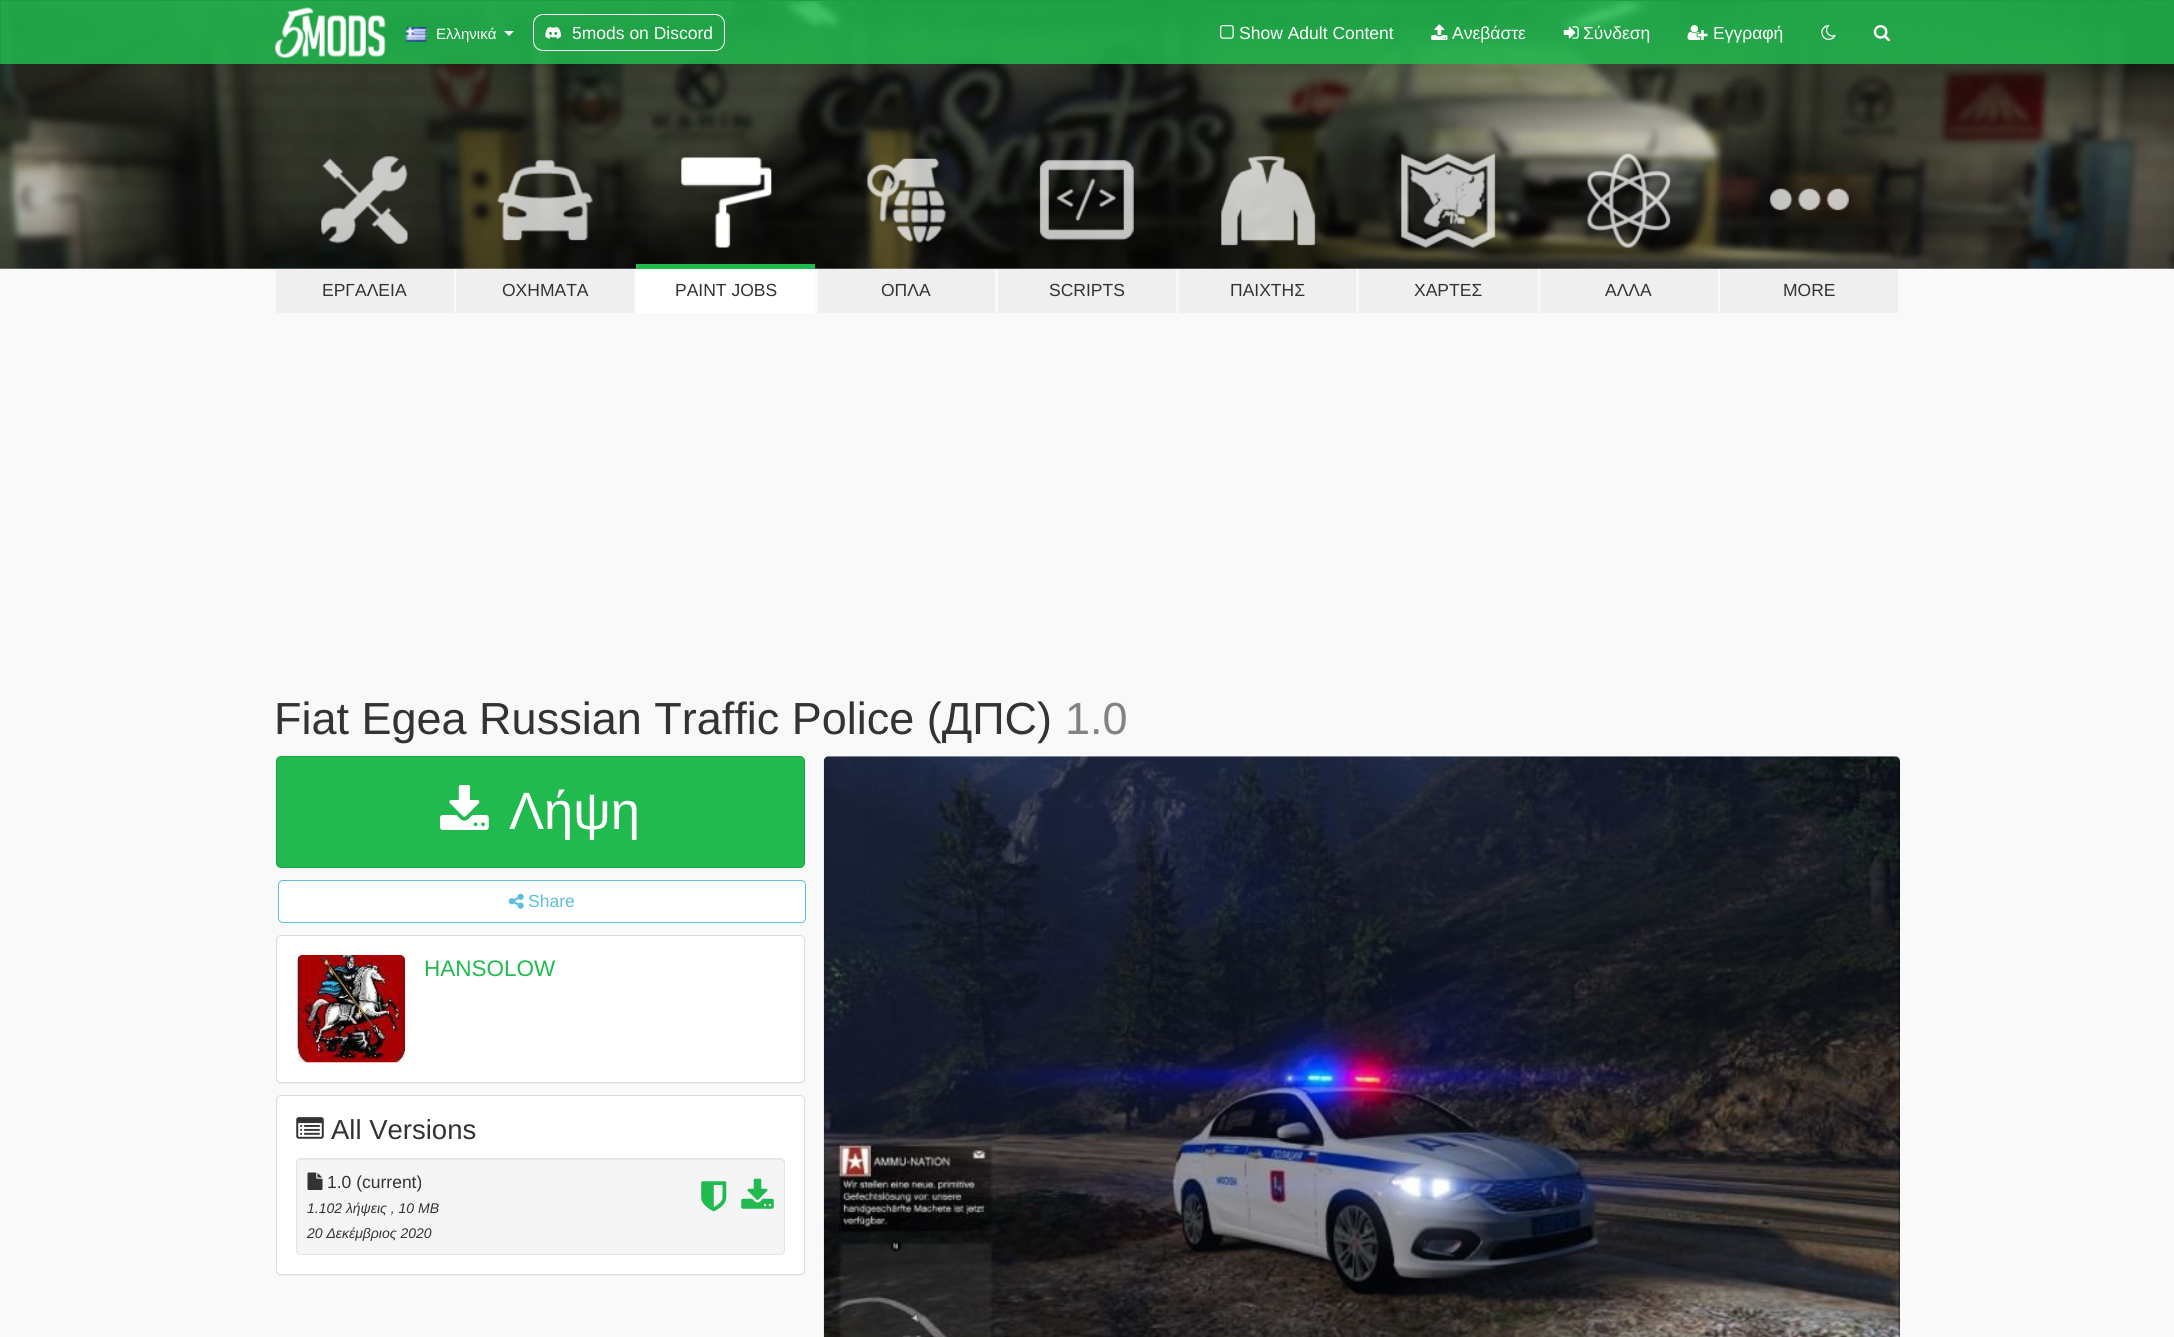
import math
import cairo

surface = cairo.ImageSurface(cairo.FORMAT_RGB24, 2174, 1337)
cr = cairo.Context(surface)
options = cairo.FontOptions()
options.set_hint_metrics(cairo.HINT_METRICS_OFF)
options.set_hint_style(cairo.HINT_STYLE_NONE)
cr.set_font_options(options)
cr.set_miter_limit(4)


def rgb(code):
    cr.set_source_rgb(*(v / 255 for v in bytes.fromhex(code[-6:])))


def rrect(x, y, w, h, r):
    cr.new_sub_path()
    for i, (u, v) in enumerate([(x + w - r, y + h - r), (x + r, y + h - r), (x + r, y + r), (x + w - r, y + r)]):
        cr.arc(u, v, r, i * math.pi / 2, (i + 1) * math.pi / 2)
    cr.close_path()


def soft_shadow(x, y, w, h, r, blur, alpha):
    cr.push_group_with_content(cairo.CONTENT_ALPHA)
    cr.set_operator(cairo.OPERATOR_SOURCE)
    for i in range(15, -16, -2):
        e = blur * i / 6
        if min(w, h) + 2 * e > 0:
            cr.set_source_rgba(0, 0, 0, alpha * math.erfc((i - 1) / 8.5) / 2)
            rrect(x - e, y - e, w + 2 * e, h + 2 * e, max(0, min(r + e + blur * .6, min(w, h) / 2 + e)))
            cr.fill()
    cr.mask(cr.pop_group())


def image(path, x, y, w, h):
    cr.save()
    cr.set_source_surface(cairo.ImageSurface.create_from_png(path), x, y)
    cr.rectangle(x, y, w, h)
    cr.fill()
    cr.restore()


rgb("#f9f9f9")
cr.paint()
image("img/10.png", 0, 1, 2174, 268)
cr.set_source_rgba(0.125, 0.729, 0.306, 0.85)
cr.rectangle(1, 1, 2173, 63)
cr.fill()
rgb("#1b9e42")
cr.rectangle(0, 0, 2174, 1)
cr.rectangle(0, 0, 1, 64)
cr.fill()
image("img/1.png", 274, 7, 112, 51)
image("img/2.png", 405, 27, 22, 15)
rgb("#ffffff")
cr.new_path()
cr.move_to(504, 31)
cr.line_to(514, 31)
cr.line_to(509, 36)
cr.close_path()
cr.fill()
rrect(533.5, 14.5, 191, 36, 9.5)
cr.set_line_width(1)
cr.stroke()
image("img/3.png", 545, 26, 16, 13)
image("img/4.png", 1220, 25, 14, 14)
image("img/5.png", 1431, 24, 17, 16)
image("img/6.png", 1563, 26, 16, 13)
image("img/7.png", 1687, 25, 21, 15)
image("img/8.png", 1821, 25, 15, 15)
image("img/9.png", 1873, 25, 17, 17)
image("img/11.png", 321, 156, 87, 88)
rgb("#efefef")
cr.rectangle(276, 269, 178, 44)
cr.fill()
image("img/12.png", 497, 159, 96, 82)
cr.rectangle(456, 269, 178, 44)
cr.fill()
image("img/13.png", 681, 157, 91, 91)
rgb("#20ba4e")
cr.rectangle(636, 264, 179, 5)
cr.fill()
rgb("#ffffff")
cr.rectangle(636, 269, 179, 44)
cr.fill()
image("img/14.png", 867, 158, 80, 85)
rgb("#efefef")
cr.rectangle(818, 269, 177, 44)
cr.fill()
image("img/15.png", 1039, 159, 95, 82)
cr.rectangle(998, 269, 178, 44)
cr.fill()
image("img/16.png", 1221, 156, 95, 90)
cr.rectangle(1179, 269, 177, 44)
cr.fill()
image("img/17.png", 1401, 153, 95, 95)
cr.rectangle(1359, 269, 179, 44)
cr.fill()
image("img/18.png", 1587, 153, 84, 95)
cr.rectangle(1540, 269, 178, 44)
cr.fill()
image("img/19.png", 1769, 188, 80, 23)
cr.rectangle(1720, 269, 178, 44)
cr.fill()
rgb("#20ba4e")
rrect(276.5, 756.5, 528, 111, 4.5)
cr.fill_preserve()
rgb("#1ca445")
cr.stroke()
image("img/20.png", 440, 785, 49, 45)
rgb("#ffffff")
rrect(278.5, 880.5, 527, 42, 4.5)
cr.fill_preserve()
rgb("#5bc0de")
cr.stroke()
image("img/21.png", 508, 893, 16, 16)
rgb("#000000")
soft_shadow(276, 936, 529, 148, 5, 0.5, 0.05)
rgb("#ffffff")
rrect(276.5, 935.5, 528, 147, 4.5)
cr.fill_preserve()
rgb("#dddddd")
cr.stroke()
image("img/22.png", 297, 955, 108, 108)
rgb("#000000")
soft_shadow(276, 1096, 529, 180, 5, 0.5, 0.05)
rgb("#ffffff")
rrect(276.5, 1095.5, 528, 179, 4.5)
cr.fill_preserve()
rgb("#dddddd")
cr.stroke()
image("img/23.png", 296, 1117, 28, 22)
rgb("#f5f5f5")
rrect(296, 1158, 489, 97, 5)
cr.fill()
rgb("#e9e9e9")
cr.new_path()
cr.move_to(301, 1160)
cr.line_to(780, 1160)
cr.curve_to(782, 1160, 784, 1162, 784, 1164)
cr.curve_to(784, 1161, 783, 1159, 780, 1159)
cr.line_to(302, 1159)
cr.curve_to(299, 1159, 298, 1161, 298, 1164)
cr.curve_to(298, 1162, 299, 1160, 301, 1160)
cr.close_path()
cr.fill()
rrect(296.5, 1158.5, 488, 96, 4.5)
rgb("#e3e3e3")
cr.stroke()
image("img/24.png", 307, 1172, 16, 18)
image("img/25.png", 701, 1181, 26, 31)
image("img/26.png", 741, 1178, 33, 31)
image("img/27.png", 823, 756, 1077, 581)
cr.select_font_face("Liberation Sans")
cr.set_font_size(15)
rgb("#ffffff")
cr.move_to(436, 39)
cr.show_text("Ελληνικά")
cr.set_font_size(17.5)
for x, y, s in [
    (572, 39, "5mods on Discord"),
    (1239, 39, "Show Adult Content"),
    (1452, 39, "Ανεβάστε"),
    (1583, 39, "Σύνδεση"),
    (1713, 39, "Εγγραφή"),
]:
    cr.move_to(x, y)
    cr.show_text(s)
rgb("#333333")
for x, y, s in [
    (322, 296, "ΕΡΓΑΛΕΙΑ"),
    (502, 296, "ΟΧΗΜΑΤΑ"),
    (675, 296, "PAINT JOBS"),
    (881, 296, "ΟΠΛΑ"),
    (1049, 296, "SCRIPTS"),
    (1230, 296, "ΠΑΙΧΤΗΣ"),
    (1414, 296, "ΧΑΡΤΕΣ"),
    (1605, 296, "ΑΛΛΑ"),
    (1783, 296, "MORE"),
]:
    cr.move_to(x, y)
    cr.show_text(s)
cr.set_font_size(45)
cr.move_to(274, 734)
cr.show_text("Fiat Egea Russian Traffic Police (ДПС)")
rgb("#828282")
cr.move_to(1065, 734)
cr.show_text("1.0")
cr.set_font_size(52.5)
rgb("#ffffff")
cr.move_to(509, 829)
cr.show_text("Λήψη")
cr.set_font_size(17.5)
rgb("#5bc0de")
cr.move_to(528, 907)
cr.show_text("Share")
cr.set_font_size(22.5)
rgb("#20ba4e")
cr.move_to(424, 976)
cr.show_text("HANSOLOW")
cr.set_font_size(27.5)
rgb("#333333")
cr.move_to(331, 1139)
cr.show_text("All Versions")
cr.set_font_size(17.5)
cr.move_to(327, 1188)
cr.show_text("1.0 (current)")
cr.select_font_face("Liberation Sans", cairo.FONT_SLANT_ITALIC)
cr.set_font_size(14)
cr.move_to(307, 1213)
cr.show_text("1.102 λήψεις , 10 MB")
cr.move_to(307, 1238)
cr.show_text("20 Δεκέμβριος 2020")
surface.write_to_png("page.png")
